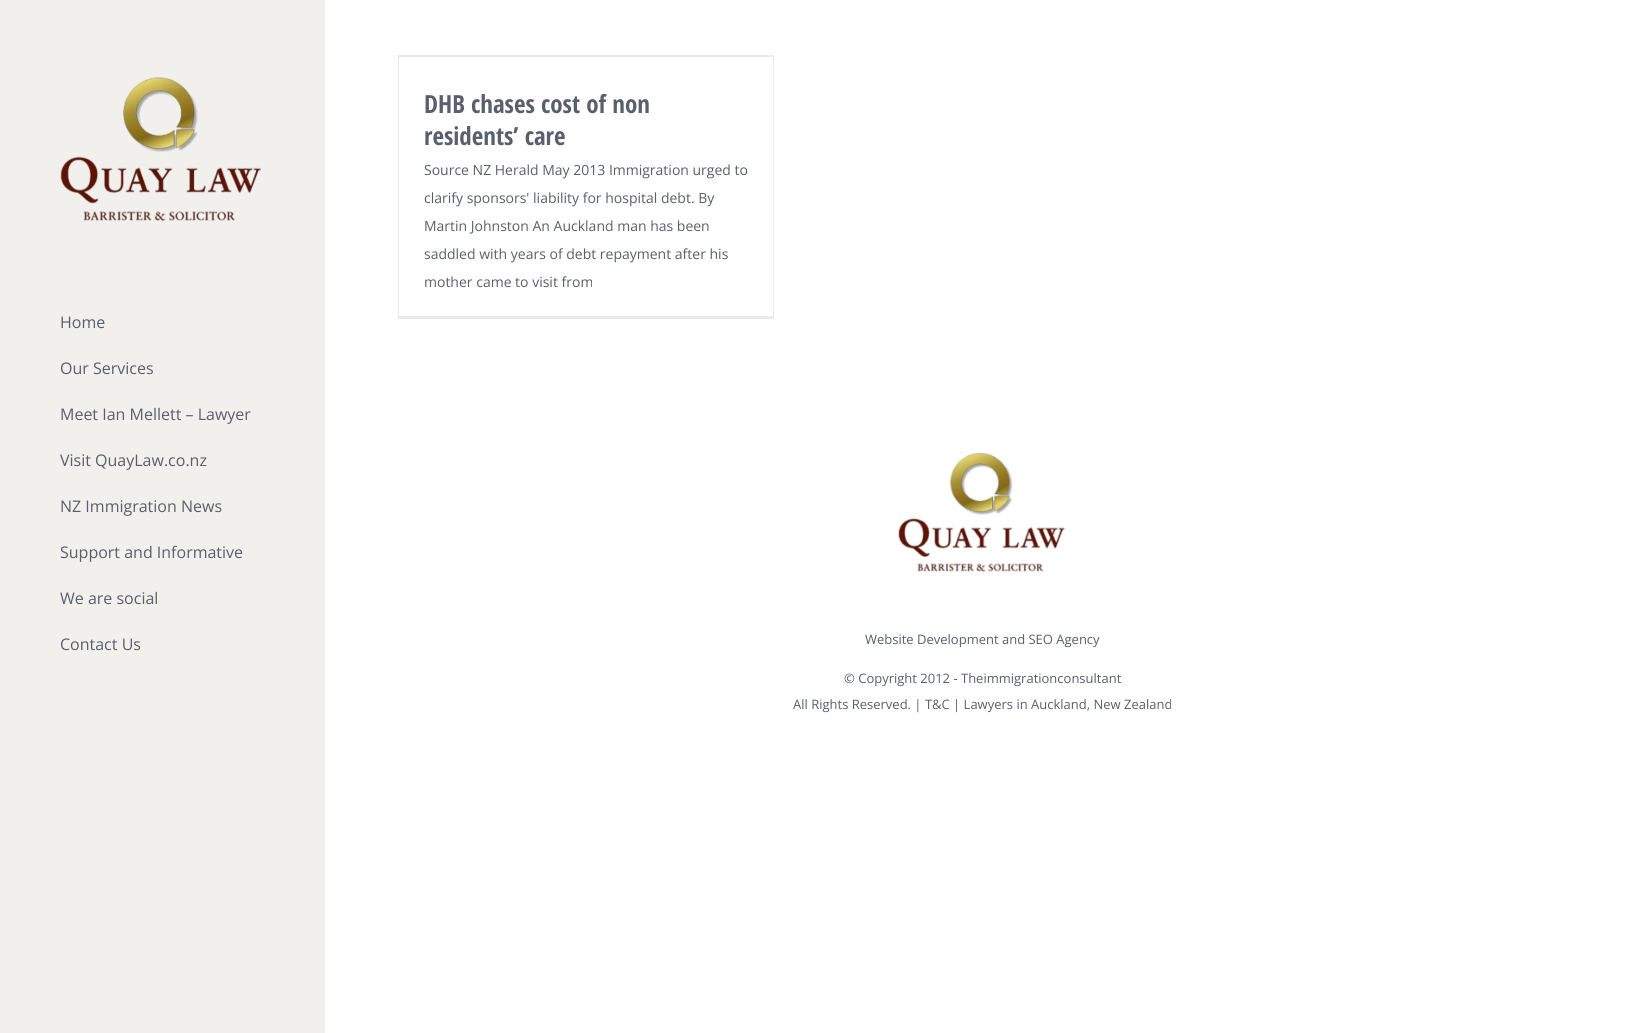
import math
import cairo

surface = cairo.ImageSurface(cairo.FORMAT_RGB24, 1640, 1033)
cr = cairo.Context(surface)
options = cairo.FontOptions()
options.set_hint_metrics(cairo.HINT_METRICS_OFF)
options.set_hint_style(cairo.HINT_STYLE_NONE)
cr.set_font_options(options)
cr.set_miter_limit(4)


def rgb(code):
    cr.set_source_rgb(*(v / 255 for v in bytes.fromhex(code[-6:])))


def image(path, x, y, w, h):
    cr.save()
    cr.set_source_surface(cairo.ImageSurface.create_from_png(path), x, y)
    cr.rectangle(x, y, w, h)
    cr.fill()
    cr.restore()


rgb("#ffffff")
cr.paint()
for x, y, w, h, color in [
    (398, 55, 376, 1, "#ebeaea"),
    (773, 55, 1, 264, "#ebeaea"),
    (398, 316, 376, 3, "#ebeaea"),
    (398, 55, 1, 264, "#ebeaea"),
    (399, 56, 374, 1, "#ebeaea"),
    (0, 0, 325, 1033, "#f1f0ec"),
]:
    rgb(color)
    cr.rectangle(x, y, w, h)
    cr.fill()
image("img/1.png", 60, 76, 202, 147)
image("img/2.png", 898, 451, 167, 122)
cr.select_font_face("Open Sans Condensed", cairo.FONT_SLANT_NORMAL, cairo.FONT_WEIGHT_BOLD)
cr.set_font_size(25)
rgb("#595f6b")
cr.move_to(424, 113)
cr.show_text("DHB chases cost of non")
cr.move_to(424, 145)
cr.show_text("residents’ care")
cr.select_font_face("Open Sans")
cr.set_font_size(14)
for x, y, s in [
    (424, 175, "Source NZ Herald May 2013 Immigration urged to"),
    (424, 203, "clarify sponsors' liability for hospital debt. By"),
    (424, 231, "Martin Johnston An Auckland man has been"),
    (424, 259, "saddled with years of debt repayment after his"),
    (424, 287, "mother came to visit from"),
]:
    cr.move_to(x, y)
    cr.show_text(s)
cr.set_font_size(16)
for x, y, s in [
    (60, 328, "Home"),
    (60, 374, "Our Services"),
    (60, 420, "Meet Ian Mellett – Lawyer"),
    (60, 466, "Visit QuayLaw.co.nz"),
    (60, 512, "NZ Immigration News"),
    (60, 558, "Support and Informative"),
    (60, 604, "We are social"),
    (60, 650, "Contact Us"),
]:
    cr.move_to(x, y)
    cr.show_text(s)
cr.set_font_size(13)
for x, y, s in [
    (865, 644, "Website Development and SEO Agency"),
    (844, 683, "© Copyright 2012 - Theimmigrationconsultant"),
    (793, 709, "All Rights Reserved. | T&C | Lawyers in Auckland, New Zealand"),
]:
    cr.move_to(x, y)
    cr.show_text(s)
surface.write_to_png("page.png")
